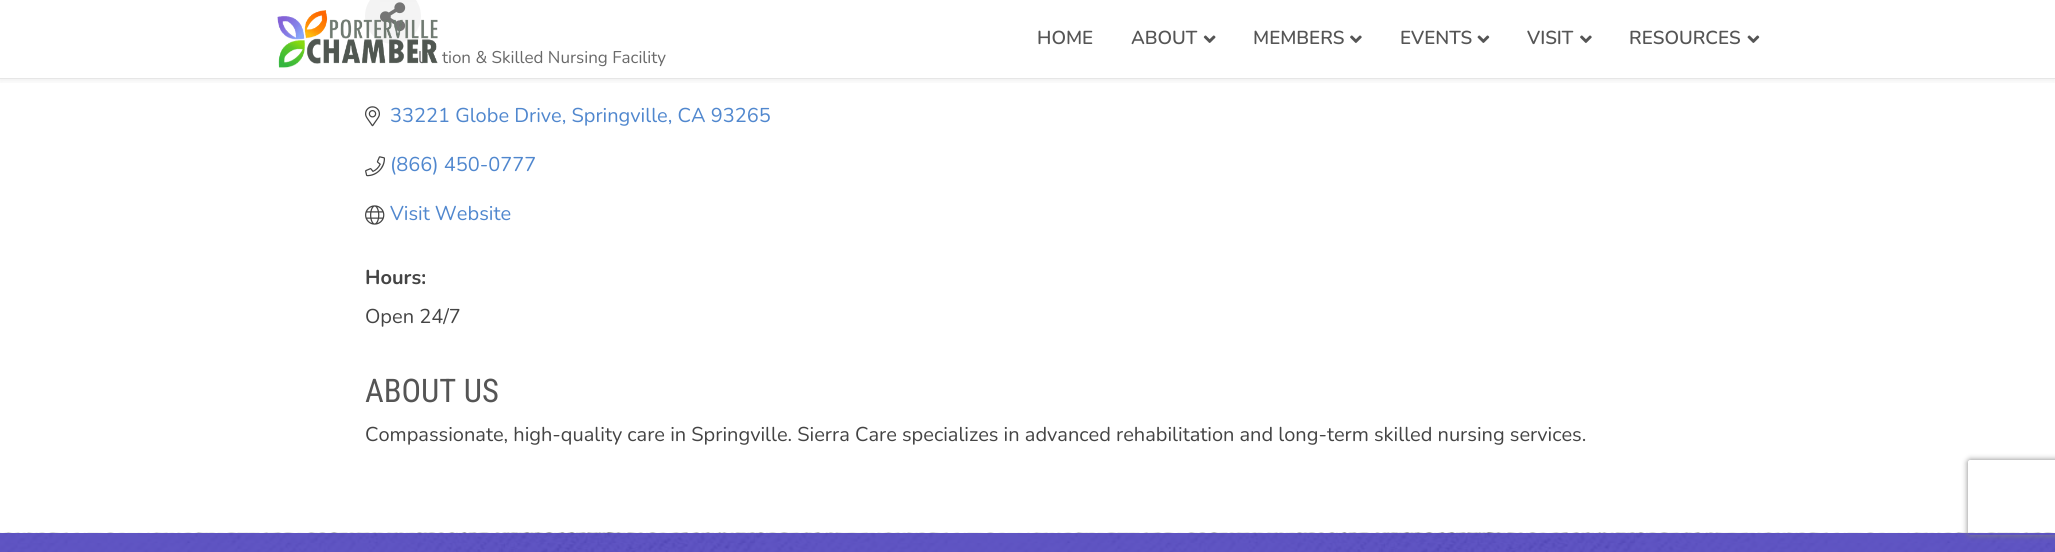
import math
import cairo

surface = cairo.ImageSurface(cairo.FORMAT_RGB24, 2055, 552)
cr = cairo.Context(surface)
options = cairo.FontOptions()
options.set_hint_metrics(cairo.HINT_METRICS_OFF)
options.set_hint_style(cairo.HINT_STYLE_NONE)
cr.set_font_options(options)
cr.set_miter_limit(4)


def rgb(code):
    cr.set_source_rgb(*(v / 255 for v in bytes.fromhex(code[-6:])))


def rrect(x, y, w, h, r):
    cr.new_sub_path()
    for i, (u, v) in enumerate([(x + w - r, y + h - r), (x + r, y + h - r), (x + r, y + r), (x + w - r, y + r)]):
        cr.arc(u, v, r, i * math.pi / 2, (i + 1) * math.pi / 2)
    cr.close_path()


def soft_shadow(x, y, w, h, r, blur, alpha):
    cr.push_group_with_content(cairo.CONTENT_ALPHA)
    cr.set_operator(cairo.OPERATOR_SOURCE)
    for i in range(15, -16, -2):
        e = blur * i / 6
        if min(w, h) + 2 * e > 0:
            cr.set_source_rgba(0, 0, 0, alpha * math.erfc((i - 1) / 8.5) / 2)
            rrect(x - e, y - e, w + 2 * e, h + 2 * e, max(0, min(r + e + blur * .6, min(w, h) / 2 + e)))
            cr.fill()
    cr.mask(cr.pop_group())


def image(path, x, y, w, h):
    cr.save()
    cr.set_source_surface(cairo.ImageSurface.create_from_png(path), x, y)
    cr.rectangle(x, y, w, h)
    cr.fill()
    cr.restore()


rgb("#ffffff")
cr.paint()
rgb("#f3f3f3")
cr.arc(393, 16, 28, 0, 2 * math.pi)
cr.fill()
image("img/5.png", 380, 2, 26, 30)
cr.save()
cr.rectangle(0, 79, 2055, 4)
cr.clip()
rgb("#000000")
soft_shadow(0, 0, 2055, 79, 0, 4.5, 0.1)
cr.restore()
cr.set_source_rgba(1, 1, 1, 0.1)
cr.rectangle(380, 2, 286, 65)
cr.fill()
rgb("#e6e6e6")
cr.rectangle(0, 78, 2055, 1)
cr.fill()
image("img/2.png", 1203, 35, 13, 8)
image("img/3.png", 1350, 35, 12, 8)
image("img/4.png", 1477, 35, 13, 8)
image("img/3.png", 1580, 35, 12, 8)
image("img/4.png", 1747, 35, 13, 8)
image("img/6.png", 365, 106, 15, 21)
image("img/7.png", 365, 156, 20, 21)
image("img/8.png", 365, 205, 20, 20)
image("img/9.png", 0, 532, 2055, 20)
cr.save()
cr.set_fill_rule(cairo.FILL_RULE_EVEN_ODD)
cr.new_path()
cr.move_to(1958, 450)
cr.line_to(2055, 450)
cr.line_to(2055, 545)
cr.line_to(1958, 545)
cr.close_path()
cr.move_to(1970.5, 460)
cr.line_to(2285.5, 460)
cr.curve_to(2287, 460, 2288, 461, 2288, 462.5)
cr.line_to(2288, 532.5)
cr.curve_to(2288, 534, 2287, 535, 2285.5, 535)
cr.line_to(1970.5, 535)
cr.curve_to(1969, 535, 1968, 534, 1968, 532.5)
cr.line_to(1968, 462.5)
cr.curve_to(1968, 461, 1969, 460, 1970.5, 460)
cr.close_path()
cr.clip()
rgb("#808080")
soft_shadow(1968, 460, 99, 75, 2.5, 3, 1)
cr.restore()
cr.select_font_face("Nunito SemiBold")
cr.set_font_size(18.75)
rgb("#555555")
for x, y, s in [
    (1037, 44, "HOME"),
    (1131, 44, "ABOUT"),
    (1253, 44, "MEMBERS"),
    (1400, 44, "EVENTS"),
    (1527, 44, "VISIT"),
    (1629, 44, "RESOURCES"),
]:
    cr.move_to(x, y)
    cr.show_text(s)
cr.select_font_face("Nunito")
cr.set_font_size(17)
rgb("#696969")
cr.move_to(418, 63)
cr.show_text("l")
image("img/1.png", 277, 10, 161, 58)
cr.move_to(442, 63)
cr.show_text("tion & Skilled Nursing Facility")
cr.set_font_size(20)
rgb("#5087ce")
for x, y, s in [
    (390, 122, "33221 Globe Drive, Springville, CA 93265"),
    (390, 171, "(866) 450-0777"),
    (390, 220, "Visit Website"),
]:
    cr.move_to(x, y)
    cr.show_text(s)
cr.select_font_face("Nunito", cairo.FONT_SLANT_NORMAL, cairo.FONT_WEIGHT_BOLD)
rgb("#444444")
cr.move_to(365, 284)
cr.show_text("Hours:")
cr.select_font_face("Nunito")
cr.move_to(365, 323)
cr.show_text("Open 24/7")
cr.select_font_face("Roboto Condensed")
cr.set_font_size(32.5)
rgb("#555555")
cr.move_to(365, 402)
cr.show_text("ABOUT US")
cr.select_font_face("Nunito")
cr.set_font_size(20)
rgb("#444444")
cr.move_to(365, 441)
cr.show_text("Compassionate, high-quality care in Springville. Sierra Care specializes in advanced rehabilitation and long-term skilled nursing services.")
surface.write_to_png("page.png")
